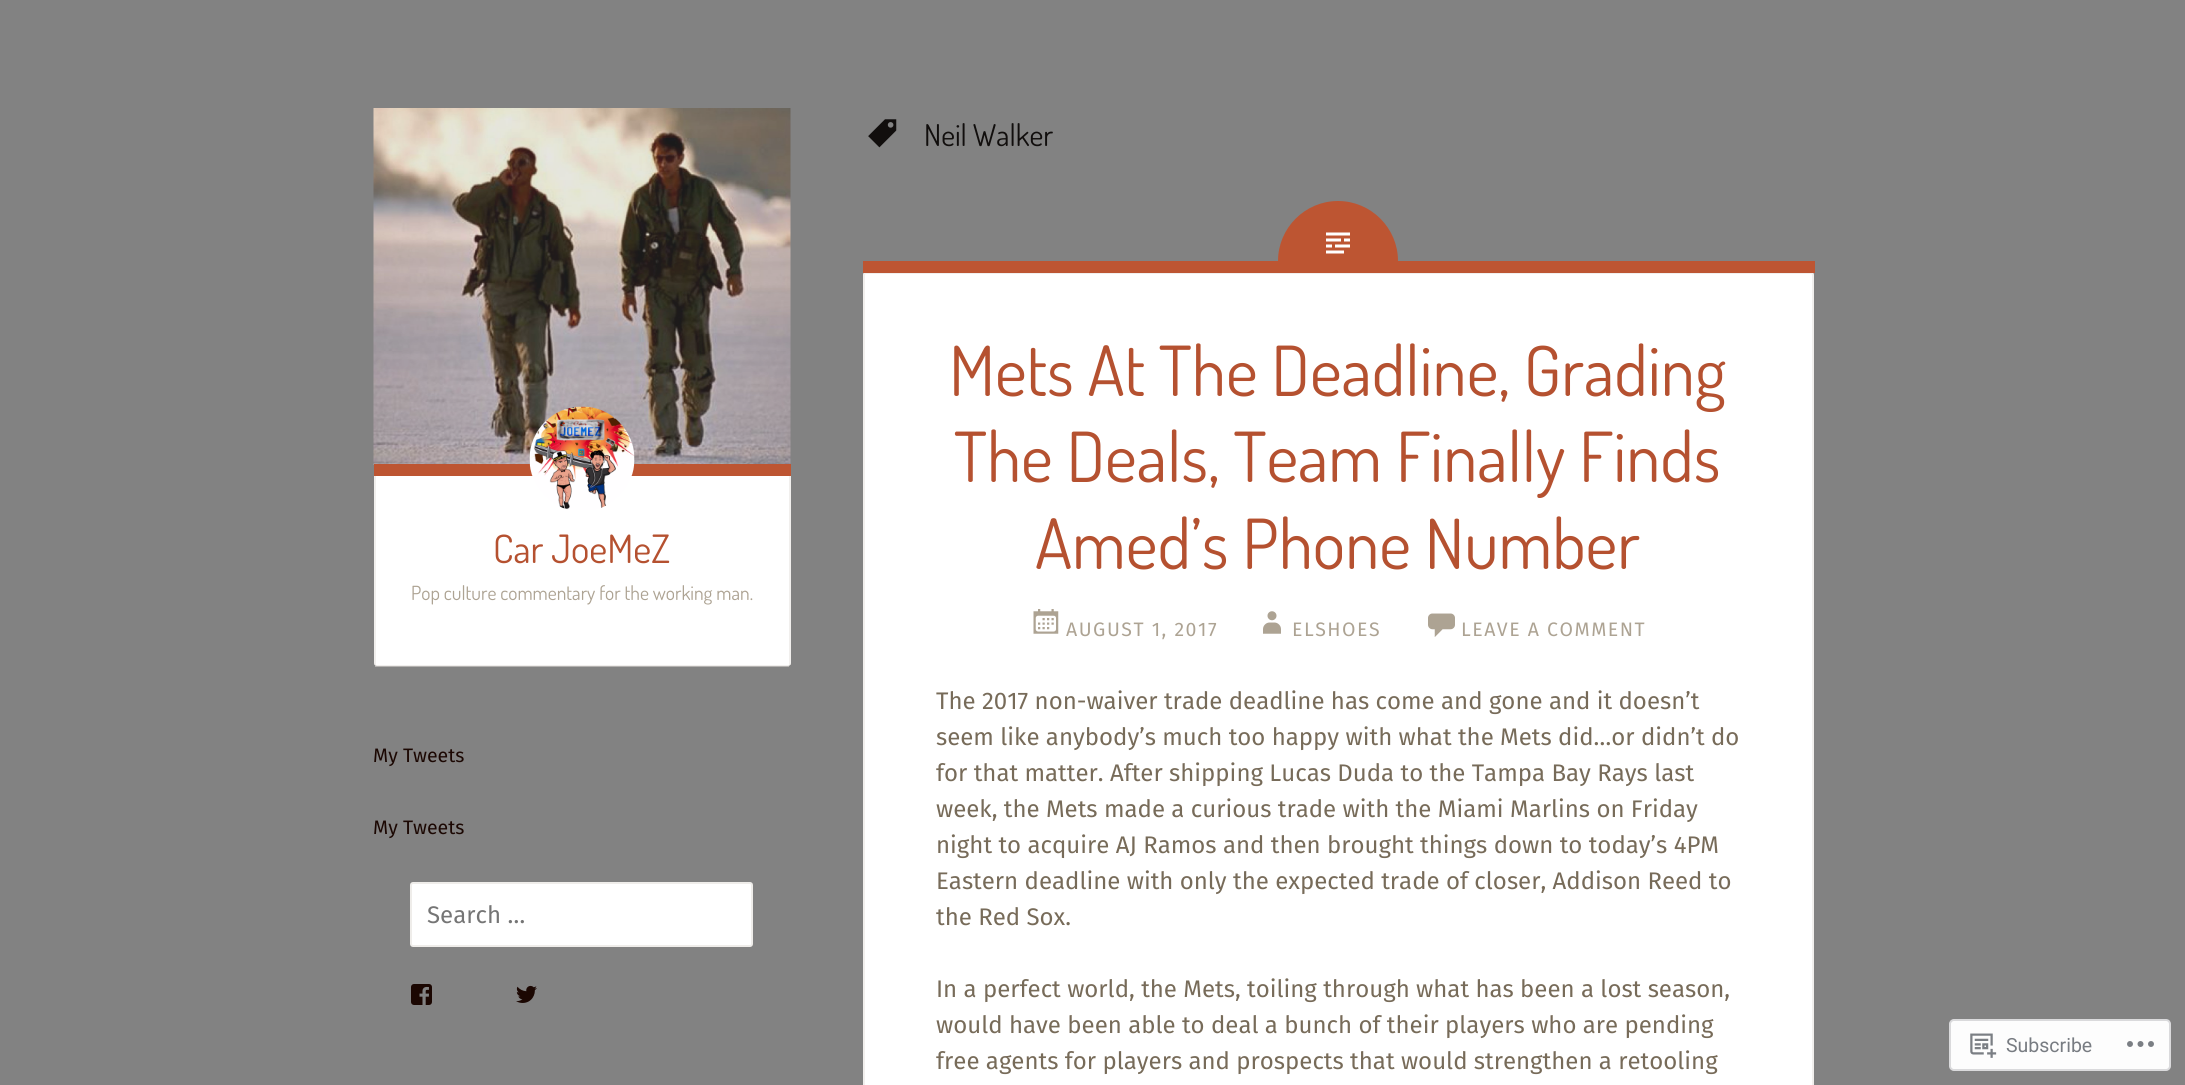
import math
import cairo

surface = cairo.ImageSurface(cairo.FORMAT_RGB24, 2185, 1085)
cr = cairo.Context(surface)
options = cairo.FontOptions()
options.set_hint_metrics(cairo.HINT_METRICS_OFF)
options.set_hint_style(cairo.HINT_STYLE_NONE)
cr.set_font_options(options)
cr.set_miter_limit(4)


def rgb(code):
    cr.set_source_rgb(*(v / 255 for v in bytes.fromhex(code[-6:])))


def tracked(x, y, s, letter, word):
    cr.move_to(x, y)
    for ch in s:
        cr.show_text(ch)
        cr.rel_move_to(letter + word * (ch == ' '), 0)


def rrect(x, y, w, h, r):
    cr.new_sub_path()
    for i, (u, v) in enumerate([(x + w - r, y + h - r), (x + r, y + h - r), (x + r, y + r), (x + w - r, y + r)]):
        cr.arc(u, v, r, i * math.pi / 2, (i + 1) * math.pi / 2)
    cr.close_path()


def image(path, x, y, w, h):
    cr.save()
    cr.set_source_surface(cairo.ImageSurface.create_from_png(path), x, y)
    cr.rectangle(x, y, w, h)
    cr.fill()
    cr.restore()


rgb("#828282")
cr.paint()
image("img/1.png", 373, 108, 418, 357)
rgb("#ffffff")
cr.new_path()
cr.move_to(374, 476)
cr.line_to(791, 476)
cr.line_to(791, 663)
cr.curve_to(791, 664.5, 789.5, 666, 788, 666)
cr.line_to(377, 666)
cr.curve_to(375.5, 666, 374, 664.5, 374, 663)
cr.close_path()
cr.fill()
cr.set_source_rgba(0.894, 0.882, 0.863, 0.5)
cr.rectangle(789, 476, 2, 189)
cr.fill()
cr.rectangle(375, 665, 414, 2)
cr.fill()
cr.rectangle(374, 476, 2, 189)
cr.fill()
rgb("#bd5532")
cr.rectangle(374, 464, 417, 12)
cr.fill()
image("img/2.png", 529, 406, 106, 104)
rgb("#ffffff")
rrect(411, 883, 341, 63, 2)
cr.fill_preserve()
rgb("#efedea")
cr.stroke()
image("img/3.png", 411, 984, 21, 21)
image("img/4.png", 516, 985, 21, 18)
image("img/5.png", 868, 119, 29, 29)
rgb("#ffffff")
rrect(863, 272, 951, 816, 3)
cr.fill()
rrect(864, 273, 949, 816, 2)
cr.set_source_rgba(0.894, 0.882, 0.863, 0.5)
cr.stroke()
rgb("#bd5532")
cr.new_path()
cr.move_to(1338, 201)
cr.curve_to(1371, 201, 1398, 228, 1398, 261)
cr.line_to(1278, 261)
cr.curve_to(1278, 228, 1305, 201, 1338, 201)
cr.close_path()
cr.fill()
image("img/6.png", 1326, 232, 24, 22)
cr.rectangle(863, 261, 952, 12)
cr.fill()
image("img/7.png", 1033, 609, 26, 25)
image("img/8.png", 1263, 611, 18, 23)
image("img/9.png", 1428, 613, 27, 24)
rgb("#fdfdfd")
rrect(1950, 1020, 220, 50, 4)
cr.fill_preserve()
rgb("#dadadc")
cr.stroke()
image("img/10.png", 1970, 1033, 27, 25)
image("img/11.png", 2127, 1041, 27, 6)
cr.select_font_face("Dosis")
cr.set_font_size(39)
rgb("#b55130")
cr.move_to(493, 563)
cr.show_text("Car JoeMeZ")
cr.set_font_size(19.5)
rgb("#ada393")
cr.move_to(411, 600)
cr.show_text("Pop culture commentary for the working man.")
cr.select_font_face("Fira Sans")
rgb("#1b0702")
cr.move_to(373, 762)
cr.show_text("My Tweets")
cr.move_to(373, 834)
cr.show_text("My Tweets")
cr.set_font_size(24)
rgb("#757575")
cr.move_to(427, 923)
cr.show_text("Search …")
cr.select_font_face("Dosis")
cr.set_font_size(30)
rgb("#110e0d")
cr.move_to(924, 146)
cr.show_text("Neil Walker")
cr.set_font_size(69)
rgb("#b55130")
for x, y, s in [
    (949, 396, "Mets At The Deadline, Grading"),
    (954, 482, "The Deals, Team Finally Finds"),
    (1035, 569, "Amed’s Phone Number"),
]:
    cr.move_to(x, y)
    cr.show_text(s)
cr.select_font_face("Fira Sans")
cr.set_font_size(19.5)
rgb("#ada393")
for x, y, s in [
    (1066, 636, "AUGUST 1, 2017"),
    (1292, 636, "ELSHOES"),
    (1461, 636, "LEAVE A COMMENT"),
]:
    tracked(x, y, s, 1.5, 0)
cr.set_font_size(24)
rgb("#776b59")
for x, y, s in [
    (936, 709, "The 2017 non-waiver trade deadline has come and gone and it doesn’t"),
    (936, 745, "seem like anybody’s much too happy with what the Mets did…or didn’t do"),
    (936, 781, "for that matter. After shipping Lucas Duda to the Tampa Bay Rays last"),
    (936, 817, "week, the Mets made a curious trade with the Miami Marlins on Friday"),
    (936, 853, "night to acquire AJ Ramos and then brought things down to today’s 4PM"),
    (936, 889, "Eastern deadline with only the expected trade of closer, Addison Reed to"),
    (936, 925, "the Red Sox."),
    (936, 997, "In a perfect world, the Mets, toiling through what has been a lost season,"),
    (936, 1033, "would have been able to deal a bunch of their players who are pending"),
    (936, 1069, "free agents for players and prospects that would strengthen a retooling"),
]:
    cr.move_to(x, y)
    cr.show_text(s)
cr.select_font_face("Roboto")
cr.set_font_size(19.5)
rgb("#787c82")
cr.move_to(2006, 1052)
cr.show_text("Subscribe")
surface.write_to_png("page.png")
